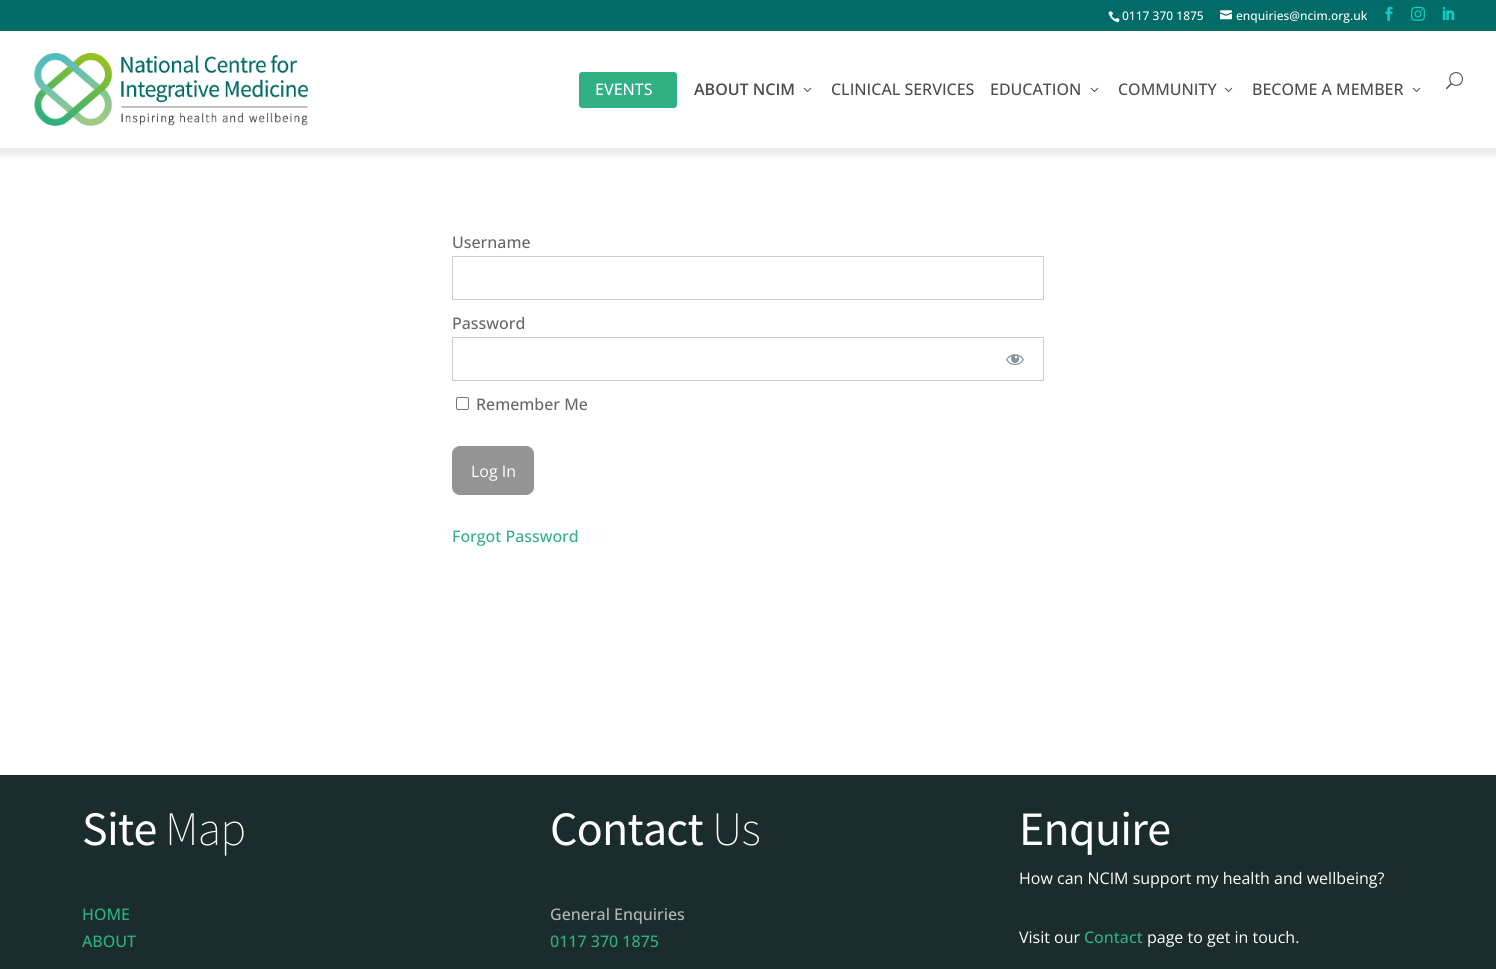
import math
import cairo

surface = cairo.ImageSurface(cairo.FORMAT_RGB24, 1496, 969)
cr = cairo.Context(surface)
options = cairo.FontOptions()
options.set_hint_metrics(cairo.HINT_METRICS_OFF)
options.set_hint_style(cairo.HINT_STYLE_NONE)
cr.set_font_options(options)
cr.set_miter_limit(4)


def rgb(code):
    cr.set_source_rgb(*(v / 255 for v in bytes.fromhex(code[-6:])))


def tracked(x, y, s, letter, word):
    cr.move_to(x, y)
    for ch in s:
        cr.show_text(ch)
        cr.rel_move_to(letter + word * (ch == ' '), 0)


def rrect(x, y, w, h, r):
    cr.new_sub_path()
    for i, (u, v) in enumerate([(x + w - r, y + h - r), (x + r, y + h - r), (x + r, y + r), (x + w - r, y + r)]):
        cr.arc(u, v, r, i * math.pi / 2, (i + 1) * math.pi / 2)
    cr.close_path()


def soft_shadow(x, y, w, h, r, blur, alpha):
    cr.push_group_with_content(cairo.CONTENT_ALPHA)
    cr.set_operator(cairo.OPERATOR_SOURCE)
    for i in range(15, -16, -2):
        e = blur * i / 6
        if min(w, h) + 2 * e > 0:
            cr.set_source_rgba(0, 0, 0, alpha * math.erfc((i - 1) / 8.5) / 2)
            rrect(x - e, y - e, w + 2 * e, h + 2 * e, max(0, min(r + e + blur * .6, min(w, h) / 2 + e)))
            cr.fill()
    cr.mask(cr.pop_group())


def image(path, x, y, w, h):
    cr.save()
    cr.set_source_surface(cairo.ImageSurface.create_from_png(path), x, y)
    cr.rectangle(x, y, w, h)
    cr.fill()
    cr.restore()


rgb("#ffffff")
cr.paint()
cr.save()
cr.rectangle(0, 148, 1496, 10)
cr.clip()
rgb("#000000")
soft_shadow(-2, 33, 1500, 121, 0, 5, 0.1)
cr.restore()
rgb("#006b67")
cr.rectangle(0, 0, 1496, 31)
cr.fill()
image("img/1.png", 1108, 11, 12, 12)
image("img/2.png", 1220, 10, 12, 10)
image("img/3.png", 1385, 6, 8, 15)
image("img/4.png", 1411, 6, 14, 15)
image("img/5.png", 1442, 6, 13, 14)
image("img/6.png", 34, 53, 274, 73)
rgb("#30b083")
rrect(579, 72, 98, 36, 3)
cr.fill()
image("img/7.png", 803, 87, 9, 5)
image("img/7.png", 1090, 87, 9, 5)
image("img/7.png", 1224, 87, 9, 5)
image("img/7.png", 1412, 87, 9, 5)
image("img/8.png", 1446, 72, 17, 18)
cr.rectangle(452.5, 256.5, 591, 43)
rgb("#cccccc")
cr.set_line_width(1)
cr.stroke()
cr.rectangle(452.5, 337.5, 591, 43)
cr.stroke()
image("img/9.png", 1006, 354, 18, 12)
rrect(456.5, 397.5, 12, 12, 1.5)
rgb("#767676")
cr.stroke()
rgb("#949494")
rrect(452.5, 446.5, 81, 48, 7.5)
cr.fill_preserve()
cr.stroke()
rgb("#1a2c2b")
cr.rectangle(0, 775, 1496, 194)
cr.fill()
cr.select_font_face("Open Sans Medium")
cr.set_font_size(12)
rgb("#ffffff")
cr.move_to(1122, 20)
cr.show_text("0117 370 1875")
cr.move_to(1236, 20)
cr.show_text("enquiries@ncim.org.uk")
cr.set_font_size(16)
cr.move_to(595, 95)
cr.show_text("EVENTS")
cr.select_font_face("Open Sans SemiBold")
rgb("#4c4c4c")
cr.move_to(694, 95)
cr.show_text("ABOUT NCIM")
cr.select_font_face("Open Sans Medium")
for x, y, s in [
    (831, 95, "CLINICAL SERVICES"),
    (990, 95, "EDUCATION"),
    (1118, 95, "COMMUNITY"),
    (1252, 95, "BECOME A MEMBER"),
]:
    cr.move_to(x, y)
    cr.show_text(s)
rgb("#666666")
for x, y, s in [
    (452, 248, "Username"),
    (452, 329, "Password"),
    (476, 410, "Remember Me"),
]:
    cr.move_to(x, y)
    cr.show_text(s)
cr.select_font_face("Open Sans")
rgb("#ffffff")
cr.move_to(471, 477)
cr.show_text("Log In")
cr.select_font_face("Open Sans Medium")
rgb("#30b083")
cr.move_to(452, 542)
cr.show_text("Forgot Password")
cr.select_font_face("Source Sans Pro")
cr.set_font_size(48)
rgb("#ffffff")
tracked(82, 845, "Site", -0.75, 0)
cr.select_font_face("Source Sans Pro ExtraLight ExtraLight")
tracked(165, 845, "Map", -0.75, 0)
cr.select_font_face("Open Sans Medium")
cr.set_font_size(16)
rgb("#30b083")
cr.move_to(82, 920)
cr.show_text("HOME")
cr.move_to(82, 947)
cr.show_text("ABOUT")
cr.select_font_face("Source Sans Pro")
cr.set_font_size(48)
rgb("#ffffff")
tracked(550, 845, "Contact", -0.75, 0)
cr.select_font_face("Source Sans Pro ExtraLight ExtraLight")
tracked(712, 845, "Us", -0.75, 0)
cr.select_font_face("Open Sans Medium")
cr.set_font_size(16)
rgb("#b7b7b7")
cr.move_to(550, 920)
cr.show_text("General Enquiries")
rgb("#30b083")
cr.move_to(550, 947)
cr.show_text("0117 370 1875")
cr.select_font_face("Source Sans Pro")
cr.set_font_size(48)
rgb("#ffffff")
tracked(1019, 845, "Enquire", -0.75, 0)
cr.select_font_face("Open Sans")
cr.set_font_size(16)
cr.move_to(1019, 884)
cr.show_text("How can NCIM support my health and wellbeing?")
cr.move_to(1019, 943)
cr.show_text("Visit our")
cr.select_font_face("Open Sans Medium")
rgb("#30b083")
cr.move_to(1084, 943)
cr.show_text("Contact")
cr.select_font_face("Open Sans")
rgb("#ffffff")
cr.move_to(1147, 943)
cr.show_text("page to get in touch.")
surface.write_to_png("page.png")
